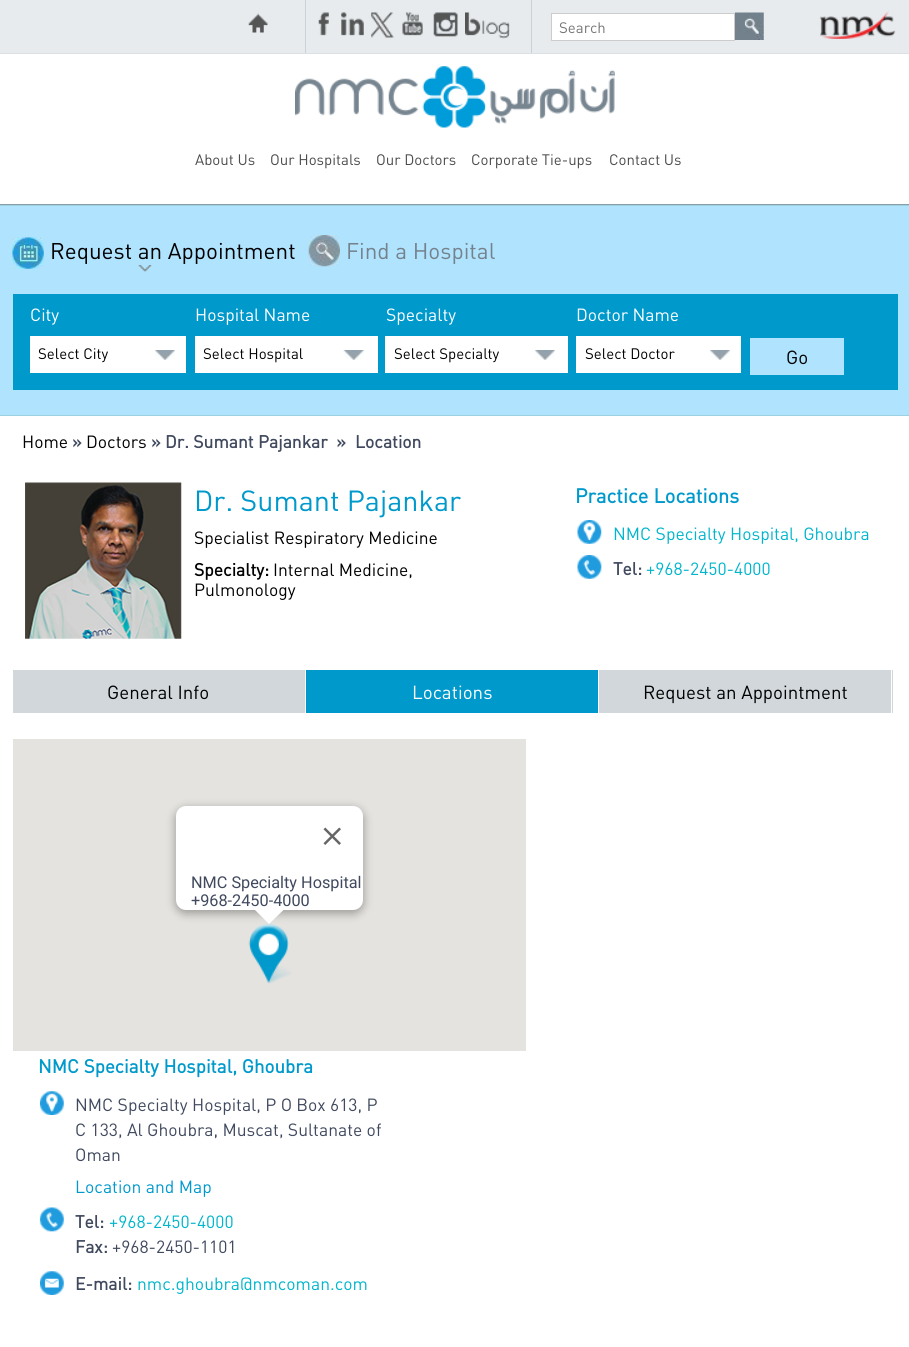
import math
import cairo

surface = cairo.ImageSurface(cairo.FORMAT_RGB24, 909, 1347)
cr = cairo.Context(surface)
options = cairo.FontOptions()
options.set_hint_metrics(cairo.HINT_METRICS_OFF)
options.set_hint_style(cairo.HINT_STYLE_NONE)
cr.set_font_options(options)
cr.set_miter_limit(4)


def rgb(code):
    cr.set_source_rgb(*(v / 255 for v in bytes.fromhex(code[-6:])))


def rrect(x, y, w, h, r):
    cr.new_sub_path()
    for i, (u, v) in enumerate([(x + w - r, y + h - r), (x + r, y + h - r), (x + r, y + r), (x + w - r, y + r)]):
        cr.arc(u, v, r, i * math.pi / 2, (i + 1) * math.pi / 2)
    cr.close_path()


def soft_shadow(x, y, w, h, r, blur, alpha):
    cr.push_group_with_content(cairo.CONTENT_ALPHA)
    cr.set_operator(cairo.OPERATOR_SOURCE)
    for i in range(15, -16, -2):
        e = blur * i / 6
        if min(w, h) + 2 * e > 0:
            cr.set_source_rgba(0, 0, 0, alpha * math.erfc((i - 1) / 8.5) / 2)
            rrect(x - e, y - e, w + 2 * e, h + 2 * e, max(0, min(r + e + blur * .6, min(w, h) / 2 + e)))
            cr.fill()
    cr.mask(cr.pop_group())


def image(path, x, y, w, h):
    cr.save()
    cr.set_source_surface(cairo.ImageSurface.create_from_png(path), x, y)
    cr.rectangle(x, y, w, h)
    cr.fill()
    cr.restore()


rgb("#ffffff")
cr.paint()
rgb("#e7ebee")
cr.rectangle(0, 0, 909, 53)
cr.fill()
rgb("#dae0e4")
cr.rectangle(0, 53, 909, 1)
cr.fill()
image("img/1.png", 248, 13, 20, 20)
rgb("#cad1d7")
cr.rectangle(531, 0, 1, 53)
cr.fill()
cr.rectangle(305, 0, 1, 53)
cr.fill()
image("img/2.png", 318, 12, 11, 24)
image("img/3.png", 341, 12, 23, 24)
image("img/4.png", 371, 12, 23, 26)
image("img/5.png", 402, 12, 21, 24)
image("img/6.png", 433, 12, 25, 25)
image("img/7.png", 465, 12, 45, 27)
rgb("#ffffff")
cr.rectangle(551.5, 13.5, 183, 27)
cr.fill_preserve()
rgb("#cccccc")
cr.set_line_width(1)
cr.stroke()
image("img/8.png", 735, 12, 29, 28)
image("img/9.png", 820, 11, 76, 28)
rgb("#889ea9")
cr.rectangle(0, 204, 909, 1)
cr.fill()
image("img/10.png", 295, 66, 320, 62)
for x, y, w, h, color in [
    (0, 206, 909, 209, "#b0e3fe"),
    (0, 205, 909, 1, "#9bd1e1"),
    (0, 415, 909, 1, "#9bd1e1"),
]:
    rgb(color)
    cr.rectangle(x, y, w, h)
    cr.fill()
image("img/11.png", 12, 237, 32, 32)
image("img/12.png", 138, 265, 14, 7)
image("img/13.png", 308, 235, 32, 32)
rgb("#0099cc")
cr.rectangle(13, 294, 885, 96)
cr.fill()
rgb("#ffffff")
cr.rectangle(30, 336, 156, 37)
cr.fill()
image("img/14.png", 155, 350, 20, 10)
cr.rectangle(195, 336, 183, 37)
cr.fill()
image("img/15.png", 343, 350, 21, 10)
cr.rectangle(385, 336, 183, 37)
cr.fill()
image("img/16.png", 535, 350, 20, 10)
cr.rectangle(576, 336, 165, 37)
cr.fill()
image("img/16.png", 710, 350, 20, 10)
rgb("#b0e3fe")
cr.rectangle(750, 338, 94, 37)
cr.fill()
image("img/17.png", 25, 482, 157, 157)
image("img/18.png", 577, 520, 25, 24)
image("img/19.png", 577, 555, 25, 24)
for x, y, w, h, color in [
    (13, 670, 292, 43, "#d2d7db"),
    (306, 670, 292, 43, "#0099cc"),
    (599, 670, 294, 43, "#d2d7db"),
    (891, 670, 1, 44, "#ffffff"),
    (13, 739, 513, 312, "#e5e3df"),
]:
    rgb(color)
    cr.rectangle(x, y, w, h)
    cr.fill()
image("img/21.png", 248, 923, 44, 61)
rgb("#000000")
soft_shadow(175, 808, 189, 106, 11, 4.5, 0.3)
rgb("#ffffff")
rrect(176, 806, 187, 104, 10)
cr.fill()
image("img/20.png", 323, 827, 18, 18)
cr.new_path()
cr.move_to(254, 909)
cr.line_to(269, 924)
cr.line_to(284.5, 909)
cr.close_path()
cr.fill()
image("img/22.png", 40, 1091, 24, 24)
image("img/23.png", 39, 1207, 25, 25)
image("img/24.png", 40, 1271, 24, 24)
cr.select_font_face("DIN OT")
cr.set_font_size(15)
rgb("#757575")
cr.move_to(559, 33)
cr.show_text("Search")
rgb("#4b4b4b")
for x, y, s in [
    (195, 165, "About Us"),
    (270, 165, "Our Hospitals"),
    (376, 165, "Our Doctors"),
    (471, 165, "Corporate Tie-ups"),
    (609, 165, "Contact Us"),
]:
    cr.move_to(x, y)
    cr.show_text(s)
cr.set_font_size(22.5)
rgb("#000000")
cr.move_to(50, 259)
cr.show_text("Request an Appointment")
rgb("#75828c")
cr.move_to(346, 259)
cr.show_text("Find a Hospital")
cr.set_font_size(17.5)
rgb("#ffffff")
cr.move_to(30, 321)
cr.show_text("City")
cr.set_font_size(15)
rgb("#000000")
cr.move_to(38, 359)
cr.show_text("Select City")
cr.set_font_size(17.5)
rgb("#ffffff")
cr.move_to(195, 321)
cr.show_text("Hospital Name")
cr.set_font_size(15)
rgb("#000000")
cr.move_to(203, 359)
cr.show_text("Select Hospital")
cr.set_font_size(17.5)
rgb("#ffffff")
cr.move_to(386, 321)
cr.show_text("Specialty")
cr.set_font_size(15)
rgb("#000000")
cr.move_to(394, 359)
cr.show_text("Select Specialty")
cr.set_font_size(17.5)
rgb("#ffffff")
cr.move_to(576, 321)
cr.show_text("Doctor Name")
cr.set_font_size(15)
rgb("#000000")
cr.move_to(585, 359)
cr.show_text("Select Doctor")
cr.set_font_size(18.75)
cr.move_to(786, 364)
cr.show_text("Go")
cr.set_font_size(17.5)
cr.move_to(22, 448)
cr.show_text("Home")
cr.select_font_face("DIN OT", cairo.FONT_SLANT_NORMAL, cairo.FONT_WEIGHT_BOLD)
rgb("#40495e")
cr.move_to(72, 448)
cr.show_text("»")
cr.select_font_face("DIN OT")
rgb("#000000")
cr.move_to(86, 448)
cr.show_text("Doctors")
cr.select_font_face("DIN OT", cairo.FONT_SLANT_NORMAL, cairo.FONT_WEIGHT_BOLD)
rgb("#40495e")
cr.move_to(151, 448)
cr.show_text("» Dr. Sumant Pajankar  »")
cr.move_to(355, 448)
cr.show_text("Location")
cr.select_font_face("DIN OT")
cr.set_font_size(28.75)
rgb("#0099cc")
cr.move_to(194, 511)
cr.show_text("Dr. Sumant Pajankar")
cr.set_font_size(17.5)
rgb("#000000")
cr.move_to(194, 544)
cr.show_text("Specialist Respiratory Medicine")
cr.select_font_face("DIN OT", cairo.FONT_SLANT_NORMAL, cairo.FONT_WEIGHT_BOLD)
cr.move_to(194, 576)
cr.show_text("Specialty:")
cr.select_font_face("DIN OT")
cr.move_to(273, 576)
cr.show_text("Internal Medicine,")
cr.move_to(194, 596)
cr.show_text("Pulmonology")
cr.select_font_face("DIN OT", cairo.FONT_SLANT_NORMAL, cairo.FONT_WEIGHT_BOLD)
cr.set_font_size(20)
rgb("#0099cc")
cr.move_to(575, 503)
cr.show_text("Practice Locations")
cr.select_font_face("DIN OT")
cr.set_font_size(17.5)
rgb("#00b5cc")
cr.move_to(613, 540)
cr.show_text("NMC Specialty Hospital, Ghoubra")
cr.select_font_face("DIN OT", cairo.FONT_SLANT_NORMAL, cairo.FONT_WEIGHT_BOLD)
rgb("#40495e")
cr.move_to(613, 575)
cr.show_text("Tel:")
cr.select_font_face("DIN OT")
rgb("#00b5cc")
cr.move_to(646, 575)
cr.show_text("+968-2450-4000")
cr.set_font_size(18.75)
rgb("#000000")
cr.move_to(107, 699)
cr.show_text("General Info")
rgb("#ffffff")
cr.move_to(412, 699)
cr.show_text("Locations")
rgb("#000000")
cr.move_to(643, 699)
cr.show_text("Request an Appointment")
cr.select_font_face("Roboto")
cr.set_font_size(16.25)
rgb("#40495e")
cr.move_to(191, 888)
cr.show_text("NMC Specialty Hospital")
cr.move_to(191, 906)
cr.show_text("+968-2450-4000")
cr.select_font_face("DIN OT", cairo.FONT_SLANT_NORMAL, cairo.FONT_WEIGHT_BOLD)
cr.set_font_size(18.75)
rgb("#0099cc")
cr.move_to(38, 1073)
cr.show_text("NMC Specialty Hospital, Ghoubra")
cr.select_font_face("DIN OT")
cr.set_font_size(17.5)
rgb("#40495e")
for x, y, s in [
    (75, 1111, "NMC Specialty Hospital, P O Box 613, P"),
    (75, 1136, "C 133, Al Ghoubra, Muscat, Sultanate of"),
    (75, 1161, "Oman"),
]:
    cr.move_to(x, y)
    cr.show_text(s)
rgb("#0099cc")
cr.move_to(75, 1193)
cr.show_text("Location and Map")
cr.select_font_face("DIN OT", cairo.FONT_SLANT_NORMAL, cairo.FONT_WEIGHT_BOLD)
rgb("#40495e")
cr.move_to(75, 1228)
cr.show_text("Tel:")
cr.select_font_face("DIN OT")
rgb("#00b5cc")
cr.move_to(109, 1228)
cr.show_text("+968-2450-4000")
cr.select_font_face("DIN OT", cairo.FONT_SLANT_NORMAL, cairo.FONT_WEIGHT_BOLD)
rgb("#40495e")
cr.move_to(75, 1253)
cr.show_text("Fax:")
cr.select_font_face("DIN OT")
cr.move_to(112, 1253)
cr.show_text("+968-2450-1101")
cr.select_font_face("DIN OT", cairo.FONT_SLANT_NORMAL, cairo.FONT_WEIGHT_BOLD)
cr.move_to(75, 1290)
cr.show_text("E-mail:")
cr.select_font_face("DIN OT")
rgb("#00b5cc")
cr.move_to(137, 1290)
cr.show_text("nmc.ghoubra@nmcoman.com")
surface.write_to_png("page.png")
